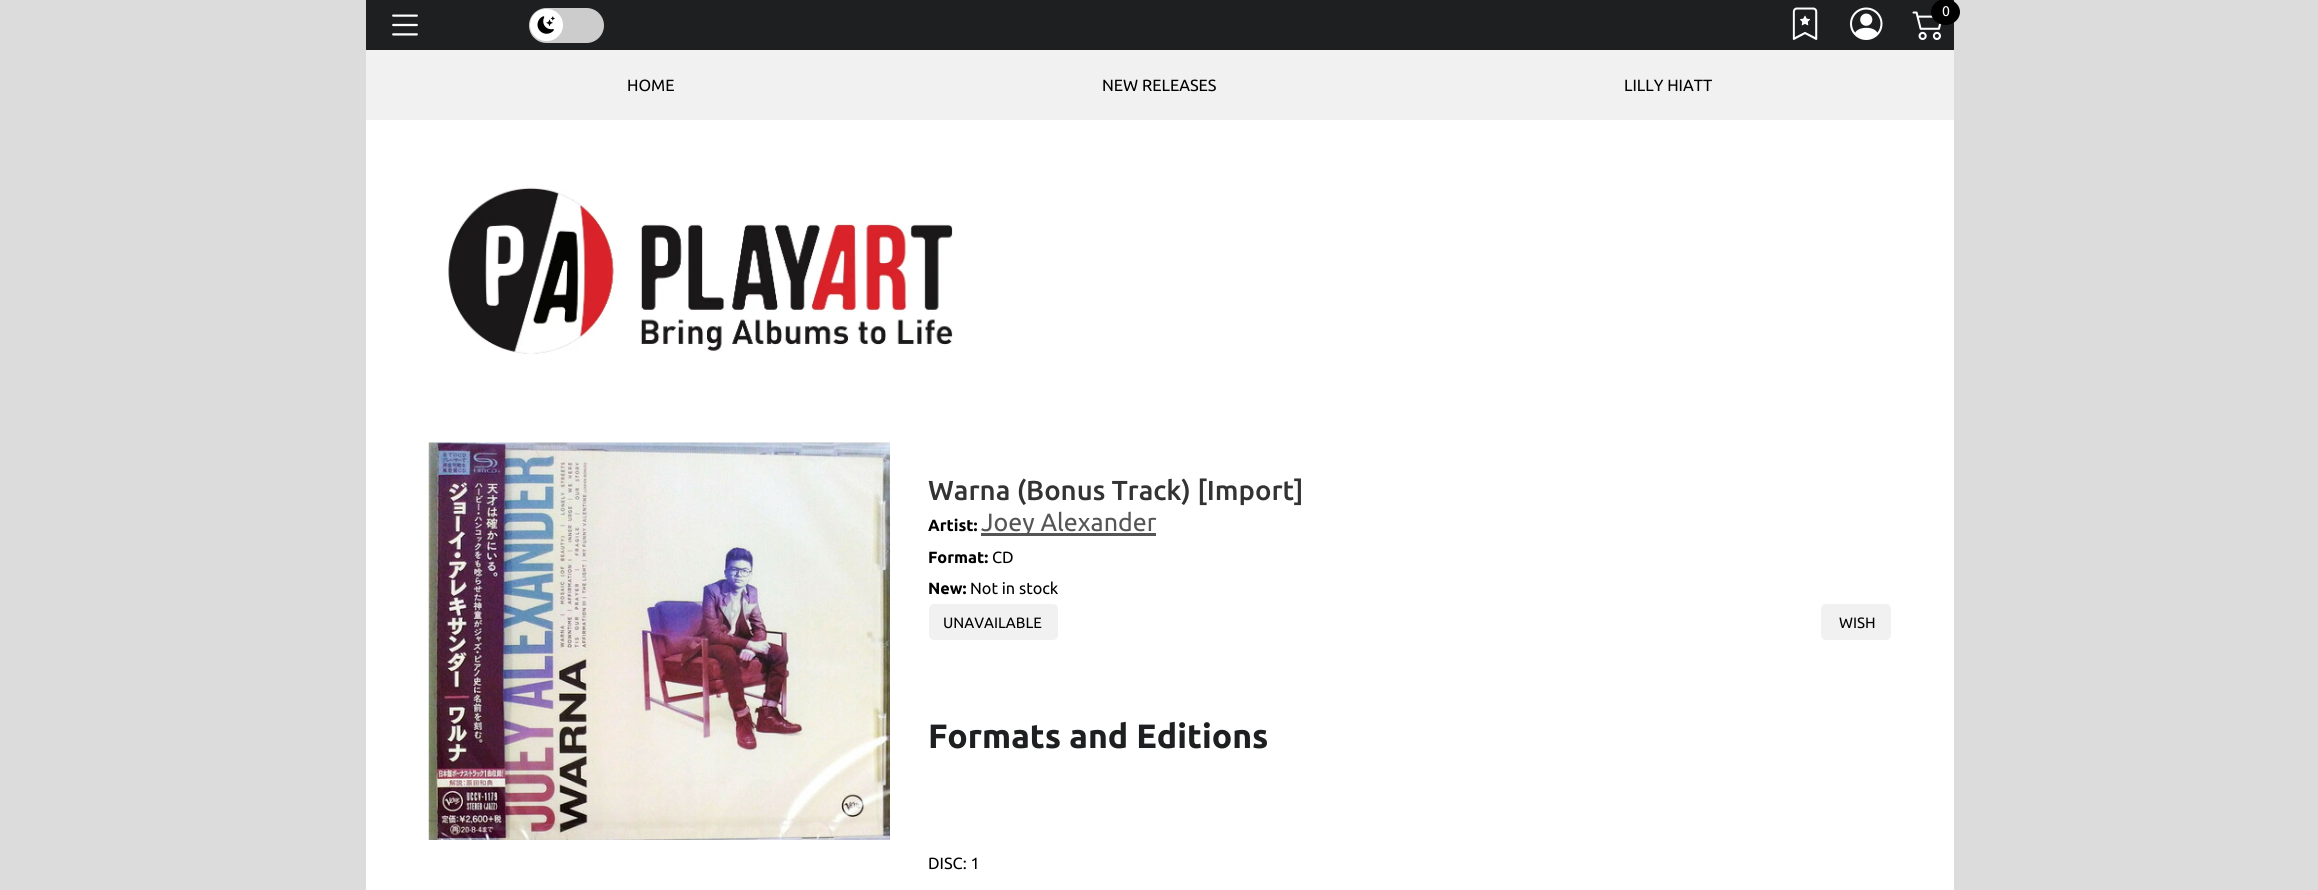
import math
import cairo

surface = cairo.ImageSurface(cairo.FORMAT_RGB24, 2318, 890)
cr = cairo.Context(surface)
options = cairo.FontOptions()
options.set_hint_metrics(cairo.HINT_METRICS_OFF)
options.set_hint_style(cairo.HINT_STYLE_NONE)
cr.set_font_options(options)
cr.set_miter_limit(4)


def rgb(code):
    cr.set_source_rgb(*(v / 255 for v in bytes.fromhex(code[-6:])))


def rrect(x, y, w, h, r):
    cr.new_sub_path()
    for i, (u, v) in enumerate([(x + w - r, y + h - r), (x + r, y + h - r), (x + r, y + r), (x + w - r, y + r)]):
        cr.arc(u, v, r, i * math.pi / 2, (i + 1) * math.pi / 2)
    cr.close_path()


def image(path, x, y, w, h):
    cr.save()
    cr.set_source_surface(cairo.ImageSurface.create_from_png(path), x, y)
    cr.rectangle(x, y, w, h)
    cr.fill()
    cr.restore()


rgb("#dcdcdc")
cr.paint()
rgb("#ffffff")
cr.rectangle(366, 120, 1588, 770)
cr.fill()
rgb("#1d1f20")
cr.rectangle(366, 0, 1588, 50)
cr.fill()
image("img/1.png", 392, 14, 26, 22)
rgb("#cccccc")
rrect(529, 8, 75, 35, 17.5)
cr.fill()
rgb("#ffffff")
rrect(530, 9, 33, 32, 16)
cr.fill()
image("img/2.png", 537, 16, 18, 18)
image("img/3.png", 1792, 7, 26, 33)
image("img/4.png", 1850, 7, 33, 33)
image("img/5.png", 1912, 11, 30, 29)
rgb("#000000")
cr.new_path()
cr.move_to(1945.5, -1)
cr.curve_to(1953.5, -1, 1960, 5, 1960, 12)
cr.curve_to(1960, 19, 1953.5, 25, 1945.5, 25)
cr.curve_to(1937.5, 25, 1931, 19, 1931, 12)
cr.curve_to(1931, 5, 1937.5, -1, 1945.5, -1)
cr.close_path()
cr.fill()
rgb("#f1f1f1")
cr.rectangle(366, 50, 1588, 70)
cr.fill()
image("img/6.png", 448, 187, 505, 167)
image("img/7.png", 428, 442, 462, 398)
rgb("#555555")
cr.rectangle(981, 533, 175, 3)
cr.fill()
rgb("#f1f1f1")
rrect(929, 604, 129, 36, 5)
cr.fill()
rrect(1821, 604, 70, 36, 5)
cr.fill()
cr.select_font_face("Ubuntu")
cr.set_font_size(14)
rgb("#ffffff")
cr.move_to(1942, 16)
cr.show_text("0")
cr.set_font_size(16.25)
rgb("#000000")
for x, y, s in [
    (627, 91, "HOME"),
    (1102, 91, "NEW RELEASES"),
    (1624, 91, "LILLY HIATT"),
]:
    cr.move_to(x, y)
    cr.show_text(s)
cr.select_font_face("Ubuntu Medium")
cr.set_font_size(27.5)
rgb("#333333")
cr.move_to(928, 500)
cr.show_text("Warna (Bonus Track) [Import]")
cr.select_font_face("Ubuntu", cairo.FONT_SLANT_NORMAL, cairo.FONT_WEIGHT_BOLD)
cr.set_font_size(16.25)
rgb("#000000")
cr.move_to(928, 531)
cr.show_text("Artist:")
cr.select_font_face("Ubuntu")
cr.set_font_size(25)
rgb("#555555")
cr.move_to(981, 531)
cr.show_text("Joey Alexander")
cr.select_font_face("Ubuntu", cairo.FONT_SLANT_NORMAL, cairo.FONT_WEIGHT_BOLD)
cr.set_font_size(16.25)
rgb("#000000")
cr.move_to(928, 563)
cr.show_text("Format:")
cr.select_font_face("Ubuntu")
cr.move_to(992, 563)
cr.show_text("CD")
cr.select_font_face("Ubuntu", cairo.FONT_SLANT_NORMAL, cairo.FONT_WEIGHT_BOLD)
cr.move_to(928, 594)
cr.show_text("New:")
cr.select_font_face("Ubuntu")
cr.move_to(970, 594)
cr.show_text("Not in stock")
cr.set_font_size(15)
cr.move_to(943, 628)
cr.show_text("UNAVAILABLE")
cr.move_to(1839, 628)
cr.show_text("WISH")
cr.select_font_face("Ubuntu", cairo.FONT_SLANT_NORMAL, cairo.FONT_WEIGHT_BOLD)
cr.set_font_size(33.75)
rgb("#1d1f20")
cr.move_to(928, 748)
cr.show_text("Formats and Editions")
cr.select_font_face("Ubuntu")
cr.set_font_size(16.25)
rgb("#000000")
cr.move_to(928, 869)
cr.show_text("DISC: 1")
surface.write_to_png("page.png")
